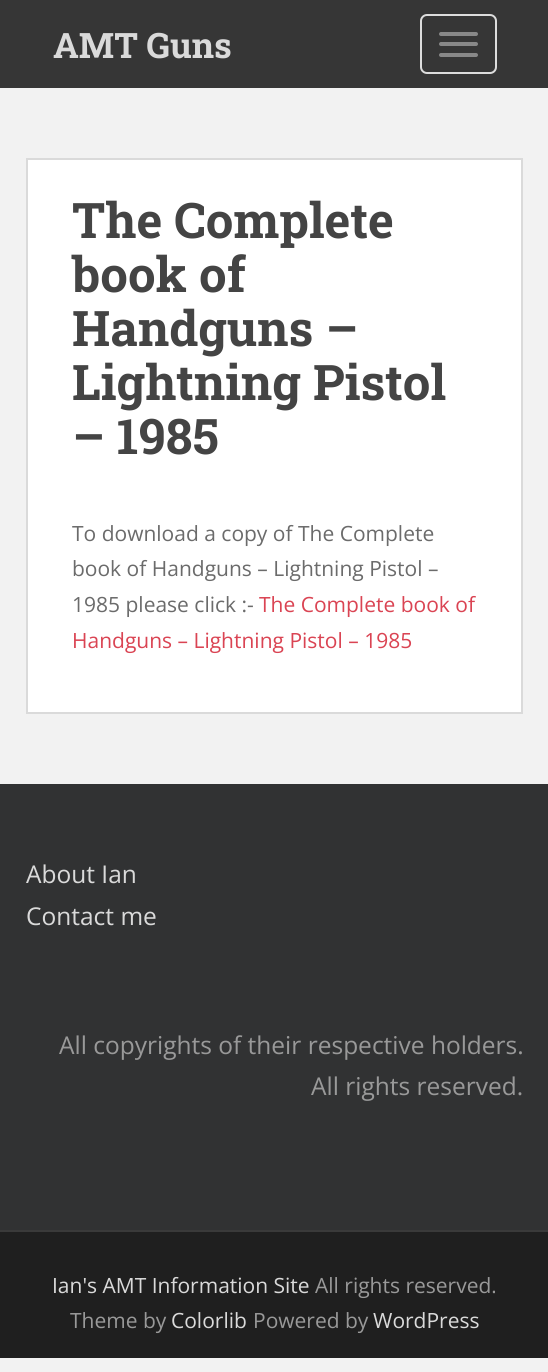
import math
import cairo

surface = cairo.ImageSurface(cairo.FORMAT_RGB24, 548, 1372)
cr = cairo.Context(surface)
options = cairo.FontOptions()
options.set_hint_metrics(cairo.HINT_METRICS_OFF)
options.set_hint_style(cairo.HINT_STYLE_NONE)
cr.set_font_options(options)
cr.set_miter_limit(4)


def rgb(code):
    cr.set_source_rgb(*(v / 255 for v in bytes.fromhex(code[-6:])))


def rrect(x, y, w, h, r):
    cr.new_sub_path()
    for i, (u, v) in enumerate([(x + w - r, y + h - r), (x + r, y + h - r), (x + r, y + r), (x + w - r, y + r)]):
        cr.arc(u, v, r, i * math.pi / 2, (i + 1) * math.pi / 2)
    cr.close_path()


rgb("#f2f2f2")
cr.paint()
rgb("#363636")
cr.rectangle(0, 0, 548, 88)
cr.fill()
rrect(421, 15, 75, 58, 6)
rgb("#dddddd")
cr.stroke()
rgb("#888888")
rrect(439, 32, 39, 4, 2)
cr.fill()
rrect(439, 42, 39, 4, 2)
cr.fill()
rrect(439, 53, 39, 4, 2)
cr.fill()
rgb("#ffffff")
cr.rectangle(27, 159, 495, 554)
cr.fill_preserve()
rgb("#dadada")
cr.stroke()
for x, y, w, h, color in [
    (0, 784, 548, 446, "#313233"),
    (0, 1232, 548, 126, "#1f1f1f"),
    (0, 1230, 548, 2, "#3a3a3a"),
]:
    rgb(color)
    cr.rectangle(x, y, w, h)
    cr.fill()
cr.select_font_face("Roboto Slab", cairo.FONT_SLANT_NORMAL, cairo.FONT_WEIGHT_BOLD)
cr.set_font_size(35)
rgb("#dadada")
cr.move_to(53, 58)
cr.show_text("AMT Guns")
cr.set_font_size(49)
rgb("#444444")
for x, y, s in [
    (72, 238, "The Complete"),
    (72, 292, "book of"),
    (72, 346, "Handguns –"),
    (72, 400, "Lightning Pistol"),
    (72, 454, "– 1985"),
]:
    cr.move_to(x, y)
    cr.show_text(s)
cr.select_font_face("Open Sans")
cr.set_font_size(21)
rgb("#6b6b6b")
for x, y, s in [
    (72, 541, "To download a copy of The Complete"),
    (72, 576, "book of Handguns – Lightning Pistol –"),
    (72, 612, "1985 please click :-"),
]:
    cr.move_to(x, y)
    cr.show_text(s)
rgb("#da4453")
cr.move_to(259, 612)
cr.show_text("The Complete book of")
cr.move_to(72, 648)
cr.show_text("Handguns – Lightning Pistol – 1985")
cr.set_font_size(24.5)
rgb("#dadada")
cr.move_to(26, 883)
cr.show_text("About Ian")
cr.move_to(26, 925)
cr.show_text("Contact me")
rgb("#999999")
cr.move_to(59, 1054)
cr.show_text("All copyrights of their respective holders.")
cr.move_to(311, 1095)
cr.show_text("All rights reserved.")
cr.set_font_size(21)
rgb("#dadada")
cr.move_to(52, 1293)
cr.show_text("Ian's AMT Information Site")
rgb("#999999")
cr.move_to(315, 1293)
cr.show_text("All rights reserved.")
cr.move_to(70, 1328)
cr.show_text("Theme by")
rgb("#dadada")
cr.move_to(171, 1328)
cr.show_text("Colorlib")
rgb("#999999")
cr.move_to(253, 1328)
cr.show_text("Powered by")
rgb("#dadada")
cr.move_to(373, 1328)
cr.show_text("WordPress")
surface.write_to_png("page.png")
